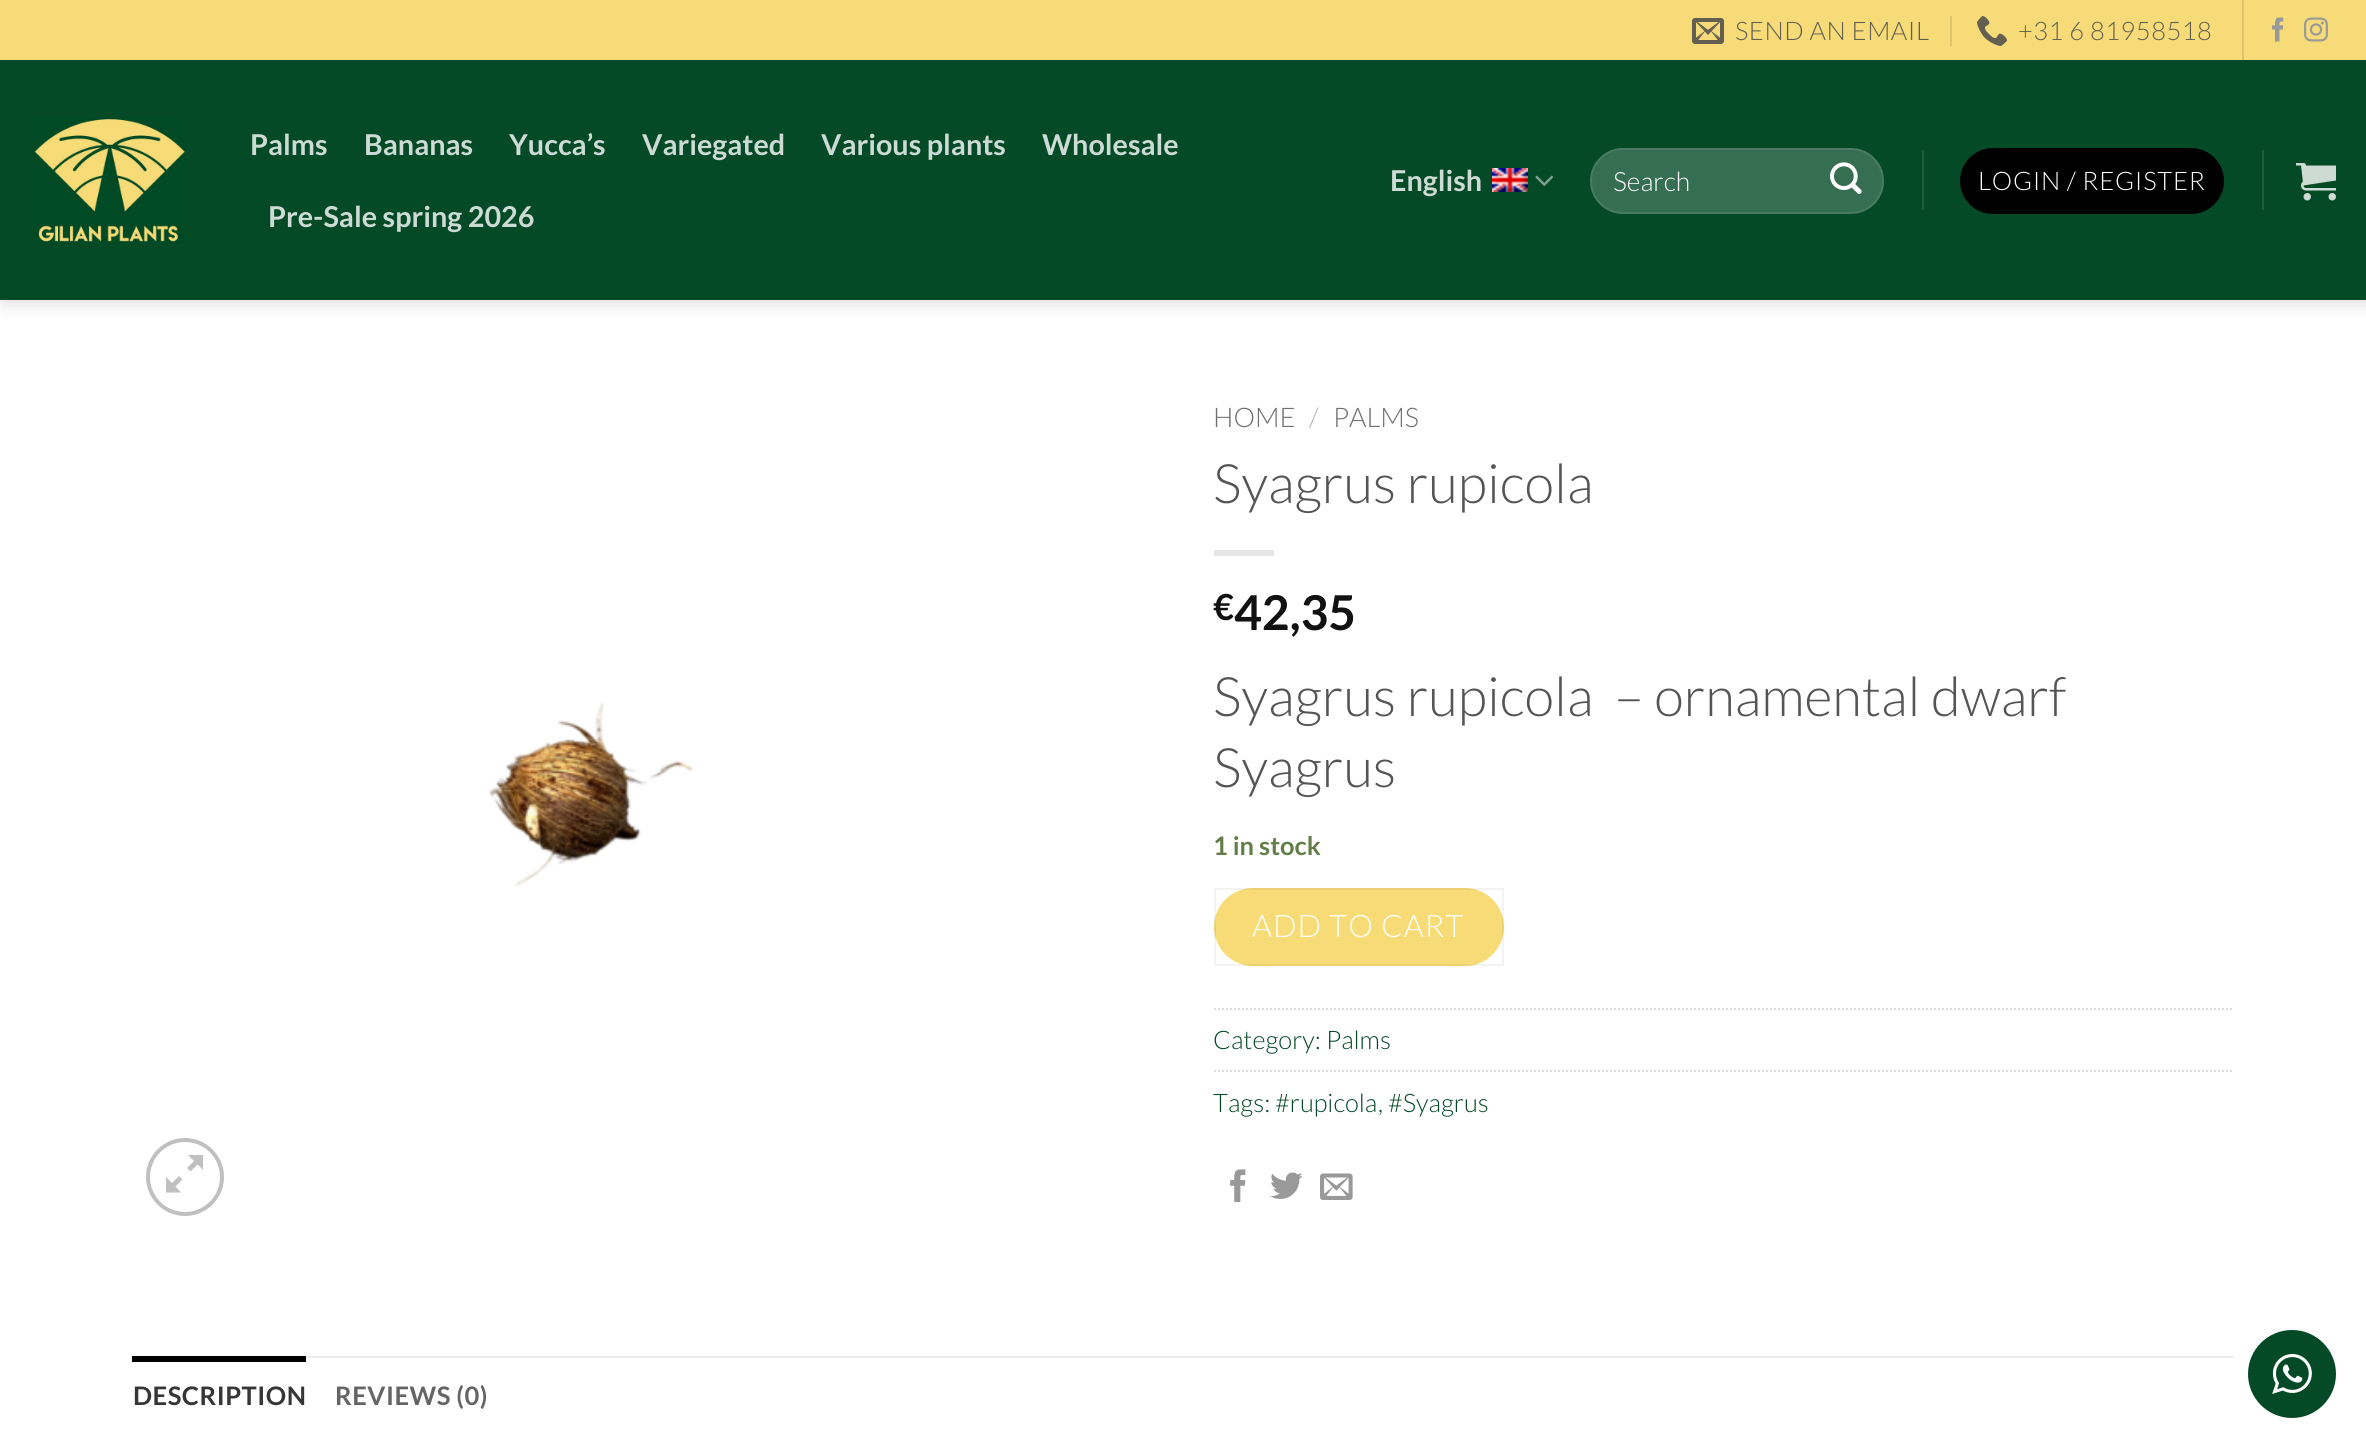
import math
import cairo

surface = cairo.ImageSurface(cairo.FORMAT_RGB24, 2366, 1447)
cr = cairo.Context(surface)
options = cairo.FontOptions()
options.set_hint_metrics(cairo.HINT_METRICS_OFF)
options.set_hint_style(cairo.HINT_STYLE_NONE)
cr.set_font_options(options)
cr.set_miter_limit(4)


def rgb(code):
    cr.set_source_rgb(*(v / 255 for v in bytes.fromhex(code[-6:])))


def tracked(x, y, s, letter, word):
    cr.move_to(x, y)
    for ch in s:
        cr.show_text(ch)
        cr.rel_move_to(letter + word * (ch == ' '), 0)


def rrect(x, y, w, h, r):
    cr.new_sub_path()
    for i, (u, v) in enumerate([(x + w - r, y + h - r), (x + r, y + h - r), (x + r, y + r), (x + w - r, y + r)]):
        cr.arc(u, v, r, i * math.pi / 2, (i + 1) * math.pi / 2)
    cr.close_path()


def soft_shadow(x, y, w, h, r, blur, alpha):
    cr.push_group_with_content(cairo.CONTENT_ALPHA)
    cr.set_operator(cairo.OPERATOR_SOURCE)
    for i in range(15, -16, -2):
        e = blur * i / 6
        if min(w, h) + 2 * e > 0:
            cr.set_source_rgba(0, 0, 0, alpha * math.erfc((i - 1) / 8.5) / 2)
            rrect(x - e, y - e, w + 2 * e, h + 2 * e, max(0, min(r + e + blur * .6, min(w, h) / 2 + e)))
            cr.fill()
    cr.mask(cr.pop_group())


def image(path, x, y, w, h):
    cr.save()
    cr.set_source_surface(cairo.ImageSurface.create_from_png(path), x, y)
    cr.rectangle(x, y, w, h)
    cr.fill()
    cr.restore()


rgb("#ffffff")
cr.paint()
rgb("#000000")
soft_shadow(2, 2, 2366, 300, 0, 10, 0.15)
rgb("#f6db78")
cr.rectangle(0, 0, 2366, 60)
cr.fill()
image("img/1.png", 1692, 18, 32, 26)
rgb("#ddc56c")
cr.rectangle(1950, 16, 2, 30)
cr.fill()
image("img/2.png", 1977, 16, 30, 30)
cr.rectangle(2242, 0, 2, 60)
cr.fill()
image("img/3.png", 2272, 17, 12, 25)
image("img/4.png", 2304, 17, 24, 25)
rgb("#044a27")
cr.rectangle(0, 60, 2366, 240)
cr.fill()
image("img/5.png", 33, 118, 152, 126)
image("img/6.png", 1492, 168, 36, 24)
image("img/7.png", 1535, 175, 19, 11)
rgb("#366e52")
rrect(1590, 148, 294, 66, 33)
cr.fill()
rrect(1591, 149, 292, 64, 32)
cr.set_source_rgba(1, 1, 1, 0.09)
cr.stroke()
image("img/8.png", 1830, 162, 32, 32)
rgb("#1d5c3d")
cr.rectangle(1922, 150, 2, 60)
cr.fill()
rgb("#000000")
rrect(1960, 148, 264, 66, 33)
cr.fill()
rgb("#1d5c3d")
cr.rectangle(2262, 150, 2, 60)
cr.fill()
image("img/9.png", 2296, 163, 40, 38)
image("img/10.png", 489, 702, 205, 185)
cr.arc(185, 1177, 37, 0, 2 * math.pi)
rgb("#c0c0c0")
cr.set_line_width(4)
cr.stroke()
cr.new_path()
cr.move_to(203, 1155)
cr.line_to(203, 1170)
cr.line_to(197.5, 1164.5)
cr.line_to(190.5, 1171.5)
cr.line_to(187, 1168)
cr.line_to(194, 1161)
cr.line_to(188, 1155)
cr.close_path()
cr.move_to(182.5, 1179.5)
cr.line_to(175.5, 1186.5)
cr.line_to(181, 1192.5)
cr.line_to(166, 1192.5)
cr.line_to(166, 1177)
cr.line_to(172, 1183)
cr.line_to(179, 1176)
cr.close_path()
cr.fill()
rgb("#e6e6e6")
cr.rectangle(1214, 550, 60, 6)
cr.fill()
rgb("#f7db77")
rrect(1214, 888, 290, 78, 39)
cr.fill()
cr.rectangle(1215, 889, 288, 76)
cr.set_source_rgba(0, 0, 0, 0.05)
cr.set_line_width(2)
cr.stroke()
cr.new_path()
cr.move_to(1214, 1009)
cr.line_to(2234, 1009)
rgb("#dddddd")
cr.set_dash([2, 2])
cr.stroke()
cr.new_path()
cr.move_to(1214, 1071)
cr.line_to(2234, 1071)
cr.stroke()
image("img/11.png", 1230, 1169, 16, 34)
image("img/12.png", 1270, 1172, 33, 27)
image("img/13.png", 1320, 1173, 33, 27)
rgb("#ececec")
cr.rectangle(306, 1356, 1928, 2)
cr.fill()
rgb("#000000")
cr.rectangle(132, 1356, 174, 6)
cr.fill()
rgb("#044a27")
cr.arc(2292, 1374, 44, 0, 2 * math.pi)
cr.fill()
image("img/14.png", 2272, 1354, 40, 40)
cr.select_font_face("Lato Light")
cr.set_font_size(25.5)
rgb("#646051")
tracked(1735, 40, "SEND AN EMAIL", 0.5, 0)
tracked(2018, 40, "+31 6 81958518", 0.5, 0)
cr.select_font_face("Lato", cairo.FONT_SLANT_NORMAL, cairo.FONT_WEIGHT_BOLD)
cr.set_font_size(28.75)
rgb("#cddbd4")
for x, y, s in [
    (250, 155, "Palms"),
    (364, 155, "Bananas"),
    (509, 155, "Yucca’s"),
    (642, 155, "Variegated"),
    (821, 155, "Various plants"),
    (1042, 155, "Wholesale"),
    (268, 227, "Pre-Sale spring 2026"),
    (1390, 191, "English"),
]:
    cr.move_to(x, y)
    cr.show_text(s)
cr.select_font_face("Lato Light")
cr.set_font_size(26.5)
rgb("#ffffff")
cr.move_to(1613, 191)
cr.show_text("Search")
cr.set_font_size(25.5)
tracked(1978, 190, "LOGIN / REGISTER", 0.75, 0)
cr.set_font_size(27)
rgb("#6e6e6e")
cr.move_to(1213, 427)
cr.show_text("HOME")
rgb("#b2b2b2")
cr.move_to(1309, 427)
cr.show_text("/")
rgb("#6e6e6e")
cr.move_to(1333, 427)
cr.show_text("PALMS")
cr.set_font_size(54.4)
rgb("#555555")
cr.move_to(1213, 503)
cr.show_text("Syagrus rupicola")
cr.select_font_face("Lato", cairo.FONT_SLANT_NORMAL, cairo.FONT_WEIGHT_BOLD)
cr.set_font_size(36)
rgb("#111111")
cr.move_to(1213, 620)
cr.show_text("€")
cr.set_font_size(48)
cr.move_to(1234, 630)
cr.show_text("42,35")
cr.select_font_face("Lato Light")
cr.set_font_size(54.4)
rgb("#555555")
cr.move_to(1213, 716)
cr.show_text("Syagrus rupicola  – ornamental dwarf")
cr.move_to(1213, 787)
cr.show_text("Syagrus")
cr.select_font_face("Lato", cairo.FONT_SLANT_NORMAL, cairo.FONT_WEIGHT_BOLD)
cr.set_font_size(25.5)
rgb("#627d47")
cr.move_to(1213, 855)
cr.show_text("1 in stock")
cr.select_font_face("Lato Light")
cr.set_font_size(31)
rgb("#ffffff")
tracked(1252, 937, "ADD TO CART", 1, 0)
cr.set_font_size(25.5)
rgb("#044a27")
for x, y, s in [
    (1213, 1049, "Category:"),
    (1326, 1049, "Palms"),
    (1213, 1112, "Tags:"),
    (1275, 1112, "#rupicola"),
    (1378, 1112, ","),
    (1388, 1112, "#Syagrus"),
]:
    cr.move_to(x, y)
    cr.show_text(s)
cr.select_font_face("Lato", cairo.FONT_SLANT_NORMAL, cairo.FONT_WEIGHT_BOLD)
rgb("#363636")
tracked(133, 1405, "DESCRIPTION", 0.5, 0)
rgb("#656565")
tracked(335, 1405, "REVIEWS (0)", 0.5, 0)
surface.write_to_png("page.png")
